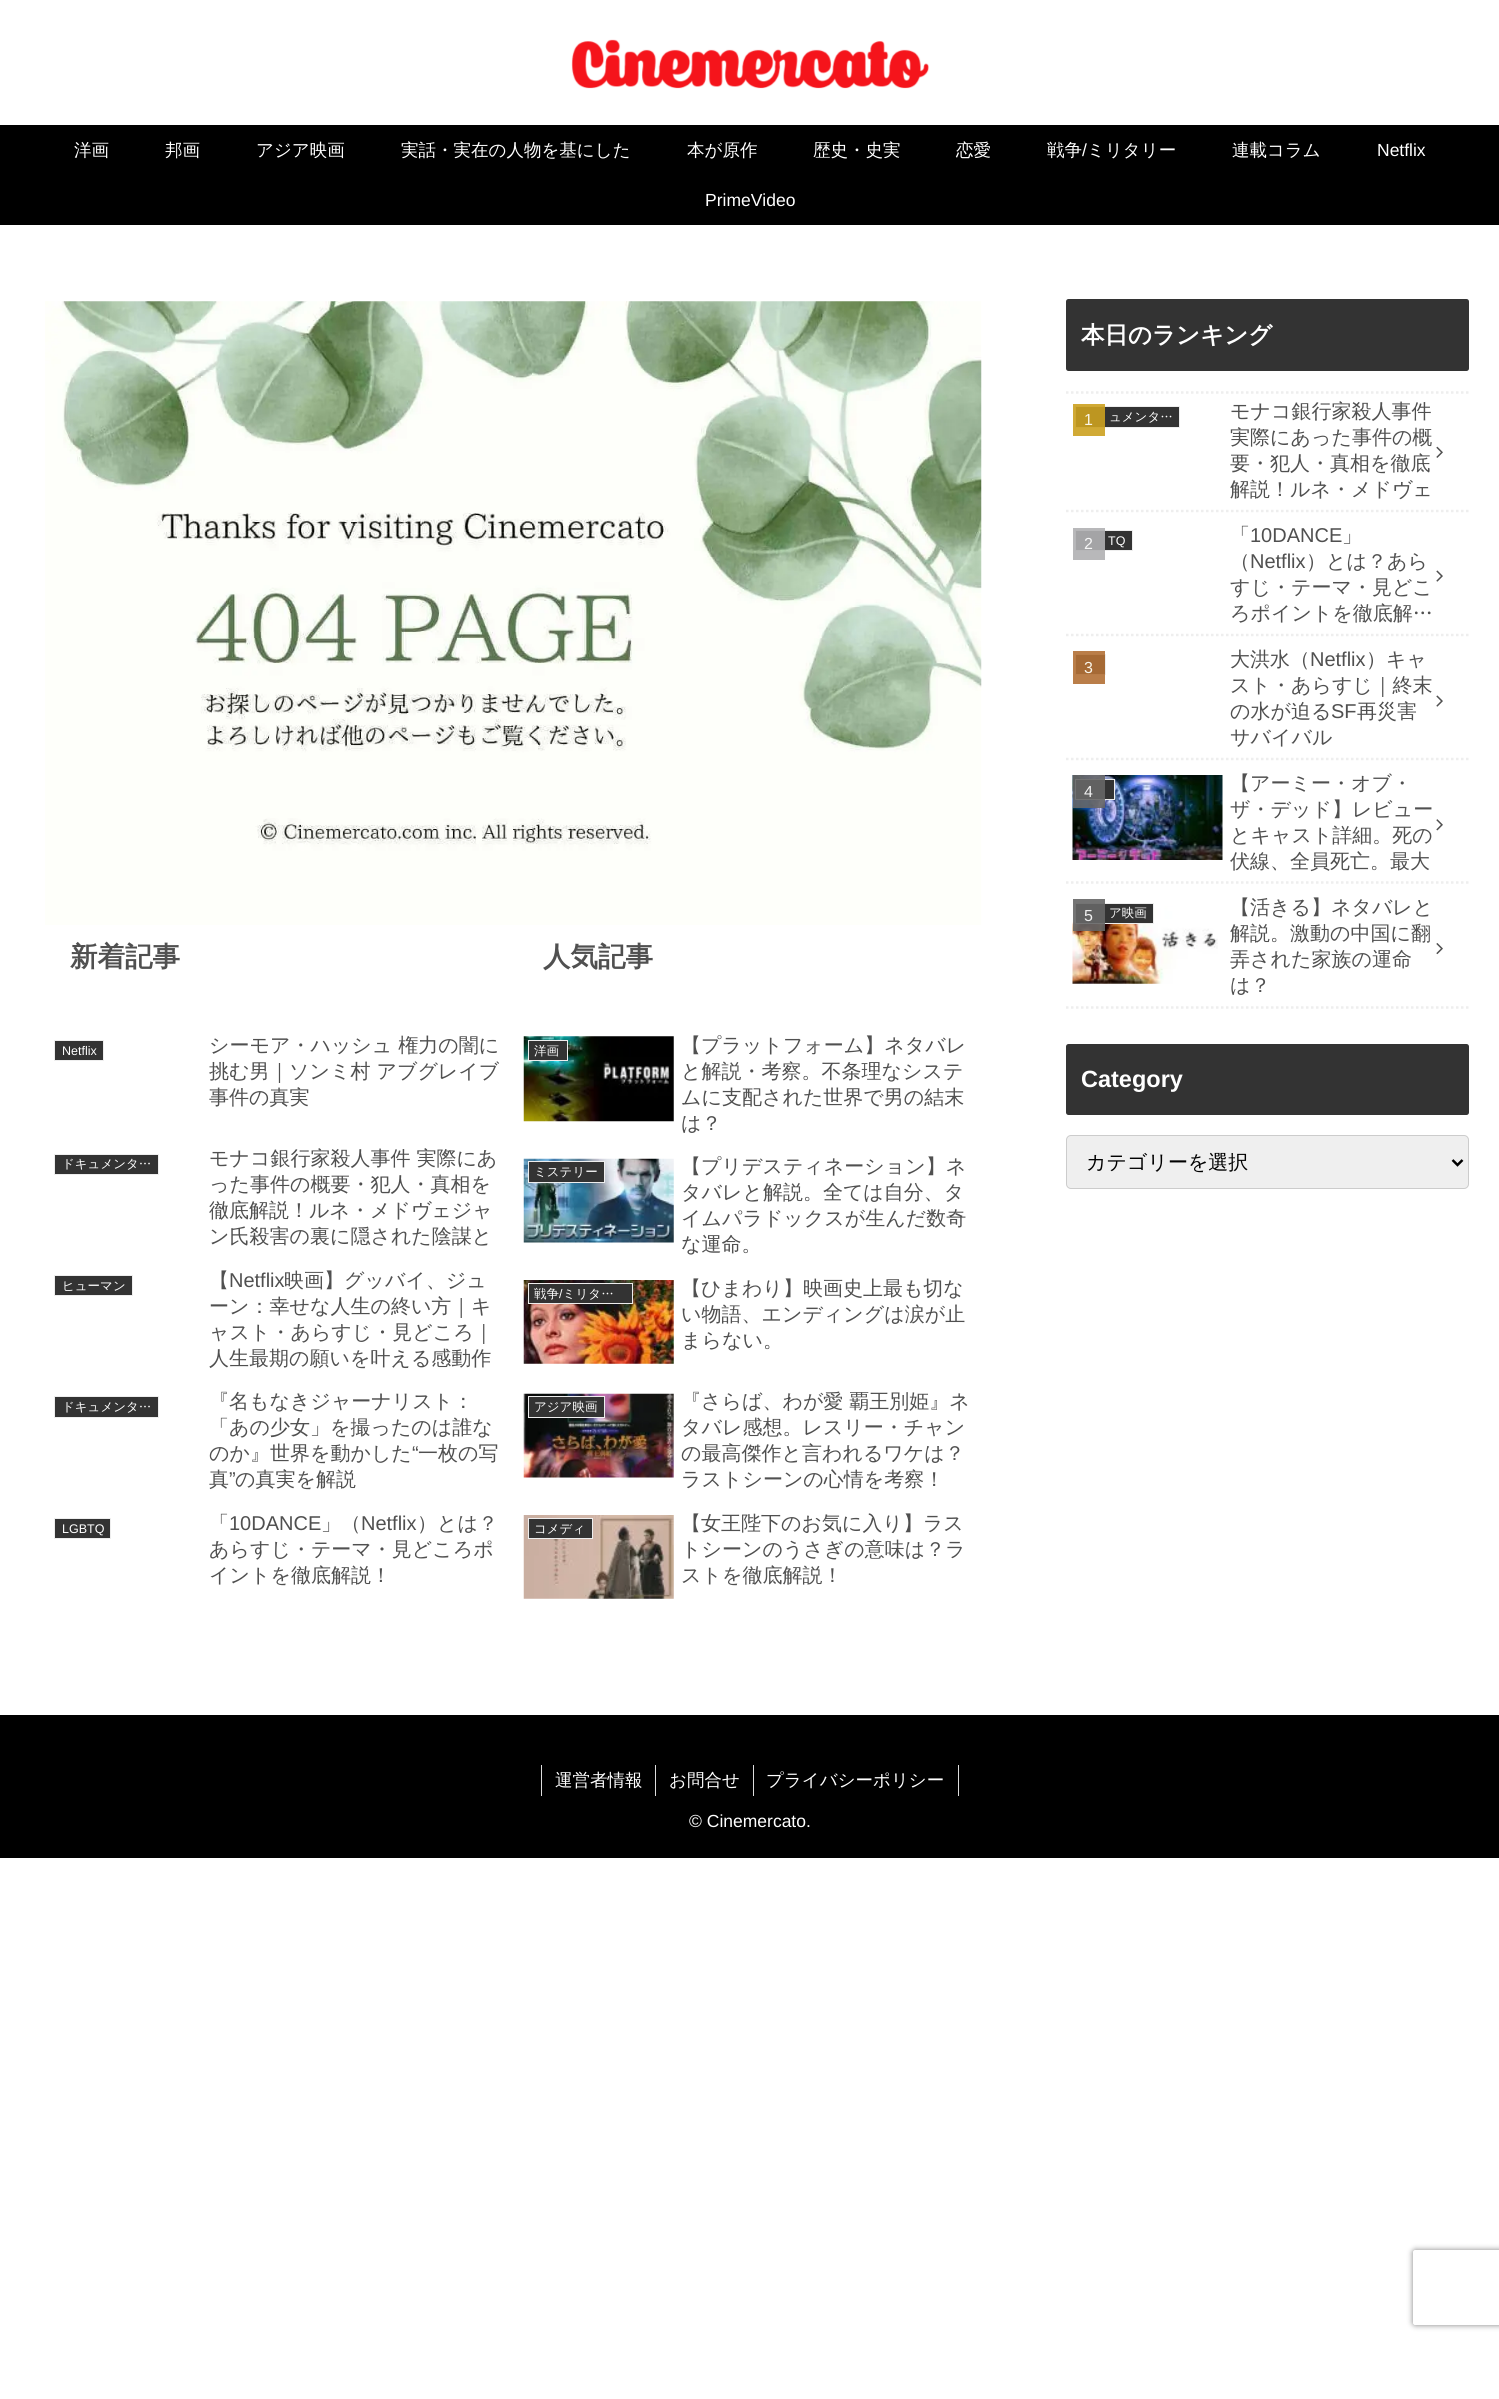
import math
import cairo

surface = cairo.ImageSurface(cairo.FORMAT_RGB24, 1499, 2399)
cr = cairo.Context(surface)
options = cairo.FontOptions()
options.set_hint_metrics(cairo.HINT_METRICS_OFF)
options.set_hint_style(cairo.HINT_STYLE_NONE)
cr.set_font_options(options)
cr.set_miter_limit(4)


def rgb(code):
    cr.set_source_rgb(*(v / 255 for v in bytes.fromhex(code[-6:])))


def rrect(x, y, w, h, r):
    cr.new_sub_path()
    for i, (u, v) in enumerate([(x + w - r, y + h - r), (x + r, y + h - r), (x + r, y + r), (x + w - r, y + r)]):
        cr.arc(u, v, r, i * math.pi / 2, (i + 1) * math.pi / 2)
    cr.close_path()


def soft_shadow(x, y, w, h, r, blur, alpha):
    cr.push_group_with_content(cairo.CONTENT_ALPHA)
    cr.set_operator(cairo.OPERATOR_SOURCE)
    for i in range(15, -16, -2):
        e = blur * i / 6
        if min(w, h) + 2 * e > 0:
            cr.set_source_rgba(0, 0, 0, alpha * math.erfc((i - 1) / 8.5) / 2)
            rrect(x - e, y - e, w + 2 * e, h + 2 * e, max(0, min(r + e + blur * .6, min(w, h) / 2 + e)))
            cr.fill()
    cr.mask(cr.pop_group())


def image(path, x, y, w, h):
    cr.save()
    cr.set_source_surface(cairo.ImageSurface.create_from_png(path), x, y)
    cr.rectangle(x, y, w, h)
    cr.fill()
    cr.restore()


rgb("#ffffff")
cr.paint()
image("img/1.png", 571, 39, 358, 50)
rgb("#000000")
cr.rectangle(0, 125, 1499, 100)
cr.fill()
rgb("#333333")
rrect(1066, 299, 403, 72, 2.5)
cr.fill()
cr.new_path()
cr.move_to(1066, 392.5)
cr.line_to(1469, 392.5)
rgb("#eeeeee")
cr.set_line_width(2.5)
cr.set_dash([2.5, 2.5])
cr.stroke()
cr.new_path()
cr.move_to(1066, 511)
cr.line_to(1469, 511)
cr.stroke()
rgb("#333333")
cr.rectangle(1075.5, 406.5, 104, 21)
cr.fill_preserve()
rgb("#eeeeee")
cr.set_line_width(1)
cr.set_dash([])
cr.stroke()
cr.set_source_rgba(0.8, 0.631, 0.122, 0.9)
cr.rectangle(1073, 404, 32, 32)
cr.fill()
image("img/2.png", 1436, 446, 7, 12)
cr.new_path()
cr.move_to(1066, 635)
cr.line_to(1469, 635)
rgb("#eeeeee")
cr.set_line_width(2.5)
cr.set_dash([2.5, 2.5])
cr.stroke()
rgb("#333333")
cr.rectangle(1075.5, 530.5, 57, 20)
cr.fill_preserve()
rgb("#eeeeee")
cr.set_line_width(1)
cr.set_dash([])
cr.stroke()
cr.set_source_rgba(0.694, 0.694, 0.702, 0.9)
cr.rectangle(1073, 528, 32, 32)
cr.fill()
image("img/3.png", 1436, 570, 7, 12)
cr.new_path()
cr.move_to(1066, 759)
cr.line_to(1469, 759)
rgb("#eeeeee")
cr.set_line_width(2.5)
cr.set_dash([2.5, 2.5])
cr.stroke()
rgb("#333333")
cr.rectangle(1075.5, 654.5, 30, 20)
cr.fill_preserve()
rgb("#eeeeee")
cr.set_line_width(1)
cr.set_dash([])
cr.stroke()
cr.set_source_rgba(0.702, 0.439, 0.212, 0.9)
cr.rectangle(1073, 651, 32, 33)
cr.fill()
image("img/3.png", 1436, 695, 7, 12)
cr.new_path()
cr.move_to(1066, 882.5)
cr.line_to(1469, 882.5)
rgb("#eeeeee")
cr.set_line_width(2.5)
cr.set_dash([2.5, 2.5])
cr.stroke()
image("img/4.png", 1072, 775, 151, 85)
rgb("#333333")
cr.rectangle(1075.5, 779.5, 39, 20)
cr.fill_preserve()
rgb("#eeeeee")
cr.set_line_width(1)
cr.set_dash([])
cr.stroke()
cr.set_source_rgba(0.4, 0.4, 0.4, 0.9)
cr.rectangle(1073, 775, 32, 33)
cr.fill()
image("img/5.png", 1436, 819, 7, 12)
cr.new_path()
cr.move_to(1066, 1007.5)
cr.line_to(1469, 1007.5)
rgb("#eeeeee")
cr.set_line_width(2.5)
cr.set_dash([2.5, 2.5])
cr.stroke()
image("img/6.png", 1072, 906, 146, 78)
rgb("#333333")
cr.rectangle(1075.5, 903.5, 78, 20)
cr.fill_preserve()
rgb("#eeeeee")
cr.set_line_width(1)
cr.set_dash([])
cr.stroke()
cr.set_source_rgba(0.4, 0.4, 0.4, 0.9)
cr.rectangle(1073, 899, 32, 32)
cr.fill()
image("img/7.png", 1436, 943, 7, 12)
rgb("#333333")
rrect(1066, 1044, 403, 71, 2.5)
cr.fill()
rgb("#efefef")
rrect(1066.5, 1135.5, 402, 53, 4.5)
cr.fill_preserve()
rgb("#cccccc")
cr.stroke()
cr.new_path()
cr.move_to(1452.5, 1160)
cr.line_to(1457.5, 1165)
cr.line_to(1462.5, 1160)
rgb("#000000")
cr.set_line_width(2.5)
cr.stroke()
image("img/8.png", 45, 301, 937, 624)
rgb("#333333")
cr.rectangle(54.5, 1040.5, 49, 20)
cr.fill_preserve()
rgb("#eeeeee")
cr.set_line_width(1)
cr.stroke()
rgb("#333333")
cr.rectangle(54.5, 1154.5, 104, 20)
cr.fill_preserve()
rgb("#eeeeee")
cr.stroke()
rgb("#333333")
cr.rectangle(54.5, 1275.5, 78, 20)
cr.fill_preserve()
rgb("#eeeeee")
cr.stroke()
rgb("#333333")
cr.rectangle(54.5, 1396.5, 104, 21)
cr.fill_preserve()
rgb("#eeeeee")
cr.stroke()
rgb("#333333")
cr.rectangle(54.5, 1518.5, 56, 20)
cr.fill_preserve()
rgb("#eeeeee")
cr.stroke()
image("img/9.png", 523, 1036, 151, 86)
rgb("#333333")
cr.rectangle(528.5, 1040.5, 39, 20)
cr.fill_preserve()
rgb("#eeeeee")
cr.stroke()
image("img/10.png", 523, 1158, 151, 85)
rgb("#333333")
cr.rectangle(528.5, 1161.5, 76, 21)
cr.fill_preserve()
rgb("#eeeeee")
cr.stroke()
image("img/11.png", 523, 1280, 151, 84)
rgb("#333333")
cr.rectangle(528.5, 1283.5, 104, 20)
cr.fill_preserve()
rgb("#eeeeee")
cr.stroke()
image("img/12.png", 523, 1393, 151, 85)
rgb("#333333")
cr.rectangle(528.5, 1396.5, 76, 21)
cr.fill_preserve()
rgb("#eeeeee")
cr.stroke()
image("img/13.png", 523, 1515, 151, 84)
rgb("#333333")
cr.rectangle(528.5, 1518.5, 64, 20)
cr.fill_preserve()
rgb("#eeeeee")
cr.stroke()
for x, y, w, h, color in [
    (0, 1715, 1499, 143, "#000000"),
    (541, 1765, 1, 31, "#dddddd"),
    (655, 1765, 1, 31, "#dddddd"),
    (958, 1765, 1, 31, "#dddddd"),
    (753, 1765, 1, 31, "#dddddd"),
]:
    rgb(color)
    cr.rectangle(x, y, w, h)
    cr.fill()
cr.save()
cr.set_fill_rule(cairo.FILL_RULE_EVEN_ODD)
cr.new_path()
cr.move_to(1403, 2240)
cr.line_to(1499, 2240)
cr.line_to(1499, 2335)
cr.line_to(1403, 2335)
cr.close_path()
cr.move_to(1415.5, 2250)
cr.line_to(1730.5, 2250)
cr.curve_to(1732, 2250, 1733, 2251, 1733, 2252.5)
cr.line_to(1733, 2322.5)
cr.curve_to(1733, 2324, 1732, 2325, 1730.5, 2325)
cr.line_to(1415.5, 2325)
cr.curve_to(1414, 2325, 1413, 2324, 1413, 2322.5)
cr.line_to(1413, 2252.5)
cr.curve_to(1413, 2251, 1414, 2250, 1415.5, 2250)
cr.close_path()
cr.clip()
rgb("#808080")
soft_shadow(1413, 2250, 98, 75, 2.5, 3, 1)
cr.restore()
cr.select_font_face("WenQuanYi Zen Hei Medium")
cr.set_font_size(17.5)
rgb("#ffffff")
for x, y, s in [
    (74, 156, "洋画"),
    (165, 156, "邦画"),
    (256, 156, "アジア映画"),
    (401, 156, "実話・実在の人物を基にした"),
    (687, 156, "本が原作"),
    (813, 156, "歴史・史実"),
    (956, 156, "恋愛"),
    (1047, 156, "戦争"),
]:
    cr.move_to(x, y)
    cr.show_text(s)
cr.select_font_face("Liberation Sans")
cr.move_to(1082, 156)
cr.show_text("/")
cr.select_font_face("WenQuanYi Zen Hei Medium")
cr.move_to(1087, 156)
cr.show_text("ミリタリー")
cr.move_to(1232, 156)
cr.show_text("連載コラム")
cr.select_font_face("Liberation Sans")
cr.move_to(1377, 156)
cr.show_text("Netflix")
cr.move_to(705, 206)
cr.show_text("PrimeVideo")
cr.select_font_face("WenQuanYi Zen Hei", cairo.FONT_SLANT_NORMAL, cairo.FONT_WEIGHT_BOLD)
cr.set_font_size(23.5)
cr.move_to(1081, 343)
cr.show_text("本日のランキング")
cr.select_font_face("Liberation Sans")
cr.set_font_size(16)
rgb("#f9f5e9")
cr.move_to(1084, 425)
cr.show_text("1")
cr.select_font_face("WenQuanYi Zen Hei Medium")
cr.set_font_size(12.5)
rgb("#ffffff")
cr.move_to(1109, 421)
cr.show_text("ュメンタ…")
cr.set_font_size(20)
rgb("#505050")
for x, y, s in [
    (1230, 418, "モナコ銀行家殺人事件"),
    (1230, 444, "実際にあった事件の概"),
    (1230, 470, "要・犯人・真相を徹底"),
    (1230, 496, "解説！ルネ・メドヴェ"),
]:
    cr.move_to(x, y)
    cr.show_text(s)
cr.select_font_face("Liberation Sans")
cr.set_font_size(16)
rgb("#f6f6f6")
cr.move_to(1084, 549)
cr.show_text("2")
cr.set_font_size(12.5)
rgb("#ffffff")
cr.move_to(1108, 545)
cr.show_text("TQ")
cr.select_font_face("WenQuanYi Zen Hei Medium")
cr.set_font_size(20)
rgb("#505050")
cr.move_to(1230, 542)
cr.show_text("「")
cr.select_font_face("Liberation Sans")
cr.move_to(1250, 542)
cr.show_text("10DANCE")
cr.select_font_face("WenQuanYi Zen Hei Medium")
cr.move_to(1342, 542)
cr.show_text("」")
cr.move_to(1230, 568)
cr.show_text("（")
cr.select_font_face("Liberation Sans")
cr.move_to(1250, 568)
cr.show_text("Netflix")
cr.select_font_face("WenQuanYi Zen Hei Medium")
for x, y, s in [
    (1306, 568, "）とは？あら"),
    (1230, 594, "すじ・テーマ・見どこ"),
    (1230, 620, "ろポイントを徹底解…"),
]:
    cr.move_to(x, y)
    cr.show_text(s)
cr.select_font_face("Liberation Sans")
cr.set_font_size(16)
rgb("#f9f5e9")
cr.move_to(1084, 673)
cr.show_text("3")
cr.select_font_face("WenQuanYi Zen Hei Medium")
cr.set_font_size(20)
rgb("#505050")
cr.move_to(1230, 666)
cr.show_text("大洪水（")
cr.select_font_face("Liberation Sans")
cr.move_to(1310, 666)
cr.show_text("Netflix")
cr.select_font_face("WenQuanYi Zen Hei Medium")
for x, y, s in [
    (1366, 666, "）キャ"),
    (1230, 692, "スト・あらすじ｜終末"),
    (1230, 718, "の水が迫る"),
]:
    cr.move_to(x, y)
    cr.show_text(s)
cr.select_font_face("Liberation Sans")
cr.move_to(1331, 718)
cr.show_text("SF")
cr.select_font_face("WenQuanYi Zen Hei Medium")
cr.move_to(1357, 718)
cr.show_text("再災害")
cr.move_to(1230, 744)
cr.show_text("サバイバル")
cr.select_font_face("Liberation Sans")
cr.set_font_size(16)
rgb("#f0f0f0")
cr.move_to(1084, 797)
cr.show_text("4")
cr.select_font_face("WenQuanYi Zen Hei Medium")
cr.set_font_size(20)
rgb("#505050")
for x, y, s in [
    (1230, 790, "【アーミー・オブ・"),
    (1230, 816, "ザ・デッド】レビュー"),
    (1230, 842, "とキャスト詳細。死の"),
    (1230, 868, "伏線、全員死亡。最大"),
]:
    cr.move_to(x, y)
    cr.show_text(s)
cr.select_font_face("Liberation Sans")
cr.set_font_size(16)
rgb("#f0f0f0")
cr.move_to(1084, 921)
cr.show_text("5")
cr.select_font_face("WenQuanYi Zen Hei Medium")
cr.set_font_size(12.5)
rgb("#ffffff")
cr.move_to(1109, 917)
cr.show_text("ア映画")
cr.set_font_size(20)
rgb("#505050")
for x, y, s in [
    (1230, 914, "【活きる】ネタバレと"),
    (1230, 940, "解説。激動の中国に翻"),
    (1230, 966, "弄された家族の運命"),
    (1230, 992, "は？"),
]:
    cr.move_to(x, y)
    cr.show_text(s)
cr.select_font_face("Liberation Sans", cairo.FONT_SLANT_NORMAL, cairo.FONT_WEIGHT_BOLD)
cr.set_font_size(23.5)
rgb("#ffffff")
cr.move_to(1081, 1087)
cr.show_text("Category")
cr.select_font_face("WenQuanYi Zen Hei Medium")
cr.set_font_size(20)
rgb("#000000")
cr.move_to(1086, 1169)
cr.show_text("カテゴリーを選択")
cr.select_font_face("WenQuanYi Zen Hei", cairo.FONT_SLANT_NORMAL, cairo.FONT_WEIGHT_BOLD)
cr.set_font_size(27.5)
rgb("#505050")
cr.move_to(70, 966)
cr.show_text("新着記事")
cr.select_font_face("Liberation Sans")
cr.set_font_size(12.5)
rgb("#ffffff")
cr.move_to(62, 1055)
cr.show_text("Netflix")
cr.select_font_face("WenQuanYi Zen Hei Medium")
cr.set_font_size(20)
rgb("#505050")
for x, y, s in [
    (209, 1052, "シーモア・ハッシュ 権力の闇に"),
    (209, 1078, "挑む男｜ソンミ村 アブグレイブ"),
    (209, 1104, "事件の真実"),
]:
    cr.move_to(x, y)
    cr.show_text(s)
cr.set_font_size(12.5)
rgb("#ffffff")
cr.move_to(62, 1168)
cr.show_text("ドキュメンタ…")
cr.set_font_size(20)
rgb("#505050")
for x, y, s in [
    (209, 1165, "モナコ銀行家殺人事件 実際にあ"),
    (209, 1191, "った事件の概要・犯人・真相を"),
    (209, 1217, "徹底解説！ルネ・メドヴェジャ"),
    (209, 1243, "ン氏殺害の裏に隠された陰謀と"),
]:
    cr.move_to(x, y)
    cr.show_text(s)
cr.set_font_size(12.5)
rgb("#ffffff")
cr.move_to(62, 1290)
cr.show_text("ヒューマン")
cr.set_font_size(20)
rgb("#505050")
cr.move_to(209, 1287)
cr.show_text("【")
cr.select_font_face("Liberation Sans")
cr.move_to(229, 1287)
cr.show_text("Netflix")
cr.select_font_face("WenQuanYi Zen Hei Medium")
for x, y, s in [
    (284, 1287, "映画】グッバイ、ジュ"),
    (209, 1313, "ーン：幸せな人生の終い方｜キ"),
    (209, 1339, "ャスト・あらすじ・見どころ｜"),
    (209, 1365, "人生最期の願いを叶える感動作"),
]:
    cr.move_to(x, y)
    cr.show_text(s)
cr.set_font_size(12.5)
rgb("#ffffff")
cr.move_to(62, 1411)
cr.show_text("ドキュメンタ…")
cr.set_font_size(20)
rgb("#505050")
for x, y, s in [
    (209, 1408, "『名もなきジャーナリスト："),
    (209, 1434, "「あの少女」を撮ったのは誰な"),
    (209, 1460, "のか』世界を動かした"),
]:
    cr.move_to(x, y)
    cr.show_text(s)
cr.select_font_face("Liberation Sans")
cr.move_to(412, 1460)
cr.show_text("“")
cr.select_font_face("WenQuanYi Zen Hei Medium")
cr.move_to(418, 1460)
cr.show_text("一枚の写")
cr.move_to(209, 1486)
cr.show_text("真")
cr.select_font_face("Liberation Sans")
cr.move_to(229, 1486)
cr.show_text("”")
cr.select_font_face("WenQuanYi Zen Hei Medium")
cr.move_to(235, 1486)
cr.show_text("の真実を解説")
cr.select_font_face("Liberation Sans")
cr.set_font_size(12.5)
rgb("#ffffff")
cr.move_to(62, 1533)
cr.show_text("LGBTQ")
cr.select_font_face("WenQuanYi Zen Hei Medium")
cr.set_font_size(20)
rgb("#505050")
cr.move_to(209, 1530)
cr.show_text("「")
cr.select_font_face("Liberation Sans")
cr.move_to(229, 1530)
cr.show_text("10DANCE")
cr.select_font_face("WenQuanYi Zen Hei Medium")
cr.move_to(321, 1530)
cr.show_text("」（")
cr.select_font_face("Liberation Sans")
cr.move_to(361, 1530)
cr.show_text("Netflix")
cr.select_font_face("WenQuanYi Zen Hei Medium")
for x, y, s in [
    (417, 1530, "）とは？"),
    (209, 1556, "あらすじ・テーマ・見どころポ"),
    (209, 1582, "イントを徹底解説！"),
]:
    cr.move_to(x, y)
    cr.show_text(s)
cr.select_font_face("WenQuanYi Zen Hei", cairo.FONT_SLANT_NORMAL, cairo.FONT_WEIGHT_BOLD)
cr.set_font_size(27.5)
cr.move_to(543, 966)
cr.show_text("人気記事")
cr.select_font_face("WenQuanYi Zen Hei Medium")
cr.set_font_size(12.5)
rgb("#ffffff")
cr.move_to(534, 1055)
cr.show_text("洋画")
cr.set_font_size(20)
rgb("#505050")
for x, y, s in [
    (681, 1052, "【プラットフォーム】ネタバレ"),
    (681, 1078, "と解説・考察。不条理なシステ"),
    (681, 1104, "ムに支配された世界で男の結末"),
    (681, 1130, "は？"),
]:
    cr.move_to(x, y)
    cr.show_text(s)
cr.set_font_size(12.5)
rgb("#ffffff")
cr.move_to(534, 1176)
cr.show_text("ミステリー")
cr.set_font_size(20)
rgb("#505050")
for x, y, s in [
    (681, 1173, "【プリデスティネーション】ネ"),
    (681, 1199, "タバレと解説。全ては自分、タ"),
    (681, 1225, "イムパラドックスが生んだ数奇"),
    (681, 1251, "な運命。"),
]:
    cr.move_to(x, y)
    cr.show_text(s)
cr.set_font_size(12.5)
rgb("#ffffff")
cr.move_to(534, 1298)
cr.show_text("戦争 ミリタ…")
cr.select_font_face("Liberation Sans")
cr.move_to(559, 1298)
cr.show_text("/")
cr.select_font_face("WenQuanYi Zen Hei Medium")
cr.set_font_size(20)
rgb("#505050")
for x, y, s in [
    (681, 1295, "【ひまわり】映画史上最も切な"),
    (681, 1321, "い物語、エンディングは涙が止"),
    (681, 1347, "まらない。"),
]:
    cr.move_to(x, y)
    cr.show_text(s)
cr.set_font_size(12.5)
rgb("#ffffff")
cr.move_to(534, 1411)
cr.show_text("アジア映画")
cr.set_font_size(20)
rgb("#505050")
for x, y, s in [
    (681, 1408, "『さらば、わが愛 覇王別姫』ネ"),
    (681, 1434, "タバレ感想。レスリー・チャン"),
    (681, 1460, "の最高傑作と言われるワケは？"),
    (681, 1486, "ラストシーンの心情を考察！"),
]:
    cr.move_to(x, y)
    cr.show_text(s)
cr.set_font_size(12.5)
rgb("#ffffff")
cr.move_to(534, 1533)
cr.show_text("コメディ")
cr.set_font_size(20)
rgb("#505050")
for x, y, s in [
    (681, 1530, "【女王陛下のお気に入り】ラス"),
    (681, 1556, "トシーンのうさぎの意味は？ラ"),
    (681, 1582, "ストを徹底解説！"),
]:
    cr.move_to(x, y)
    cr.show_text(s)
cr.set_font_size(17.5)
rgb("#ffffff")
for x, y, s in [
    (555, 1786, "運営者情報"),
    (669, 1786, "お問合せ"),
    (766, 1786, "プライバシーポリシー"),
]:
    cr.move_to(x, y)
    cr.show_text(s)
cr.select_font_face("Liberation Sans")
cr.move_to(689, 1827)
cr.show_text("© Cinemercato.")
surface.write_to_png("page.png")
